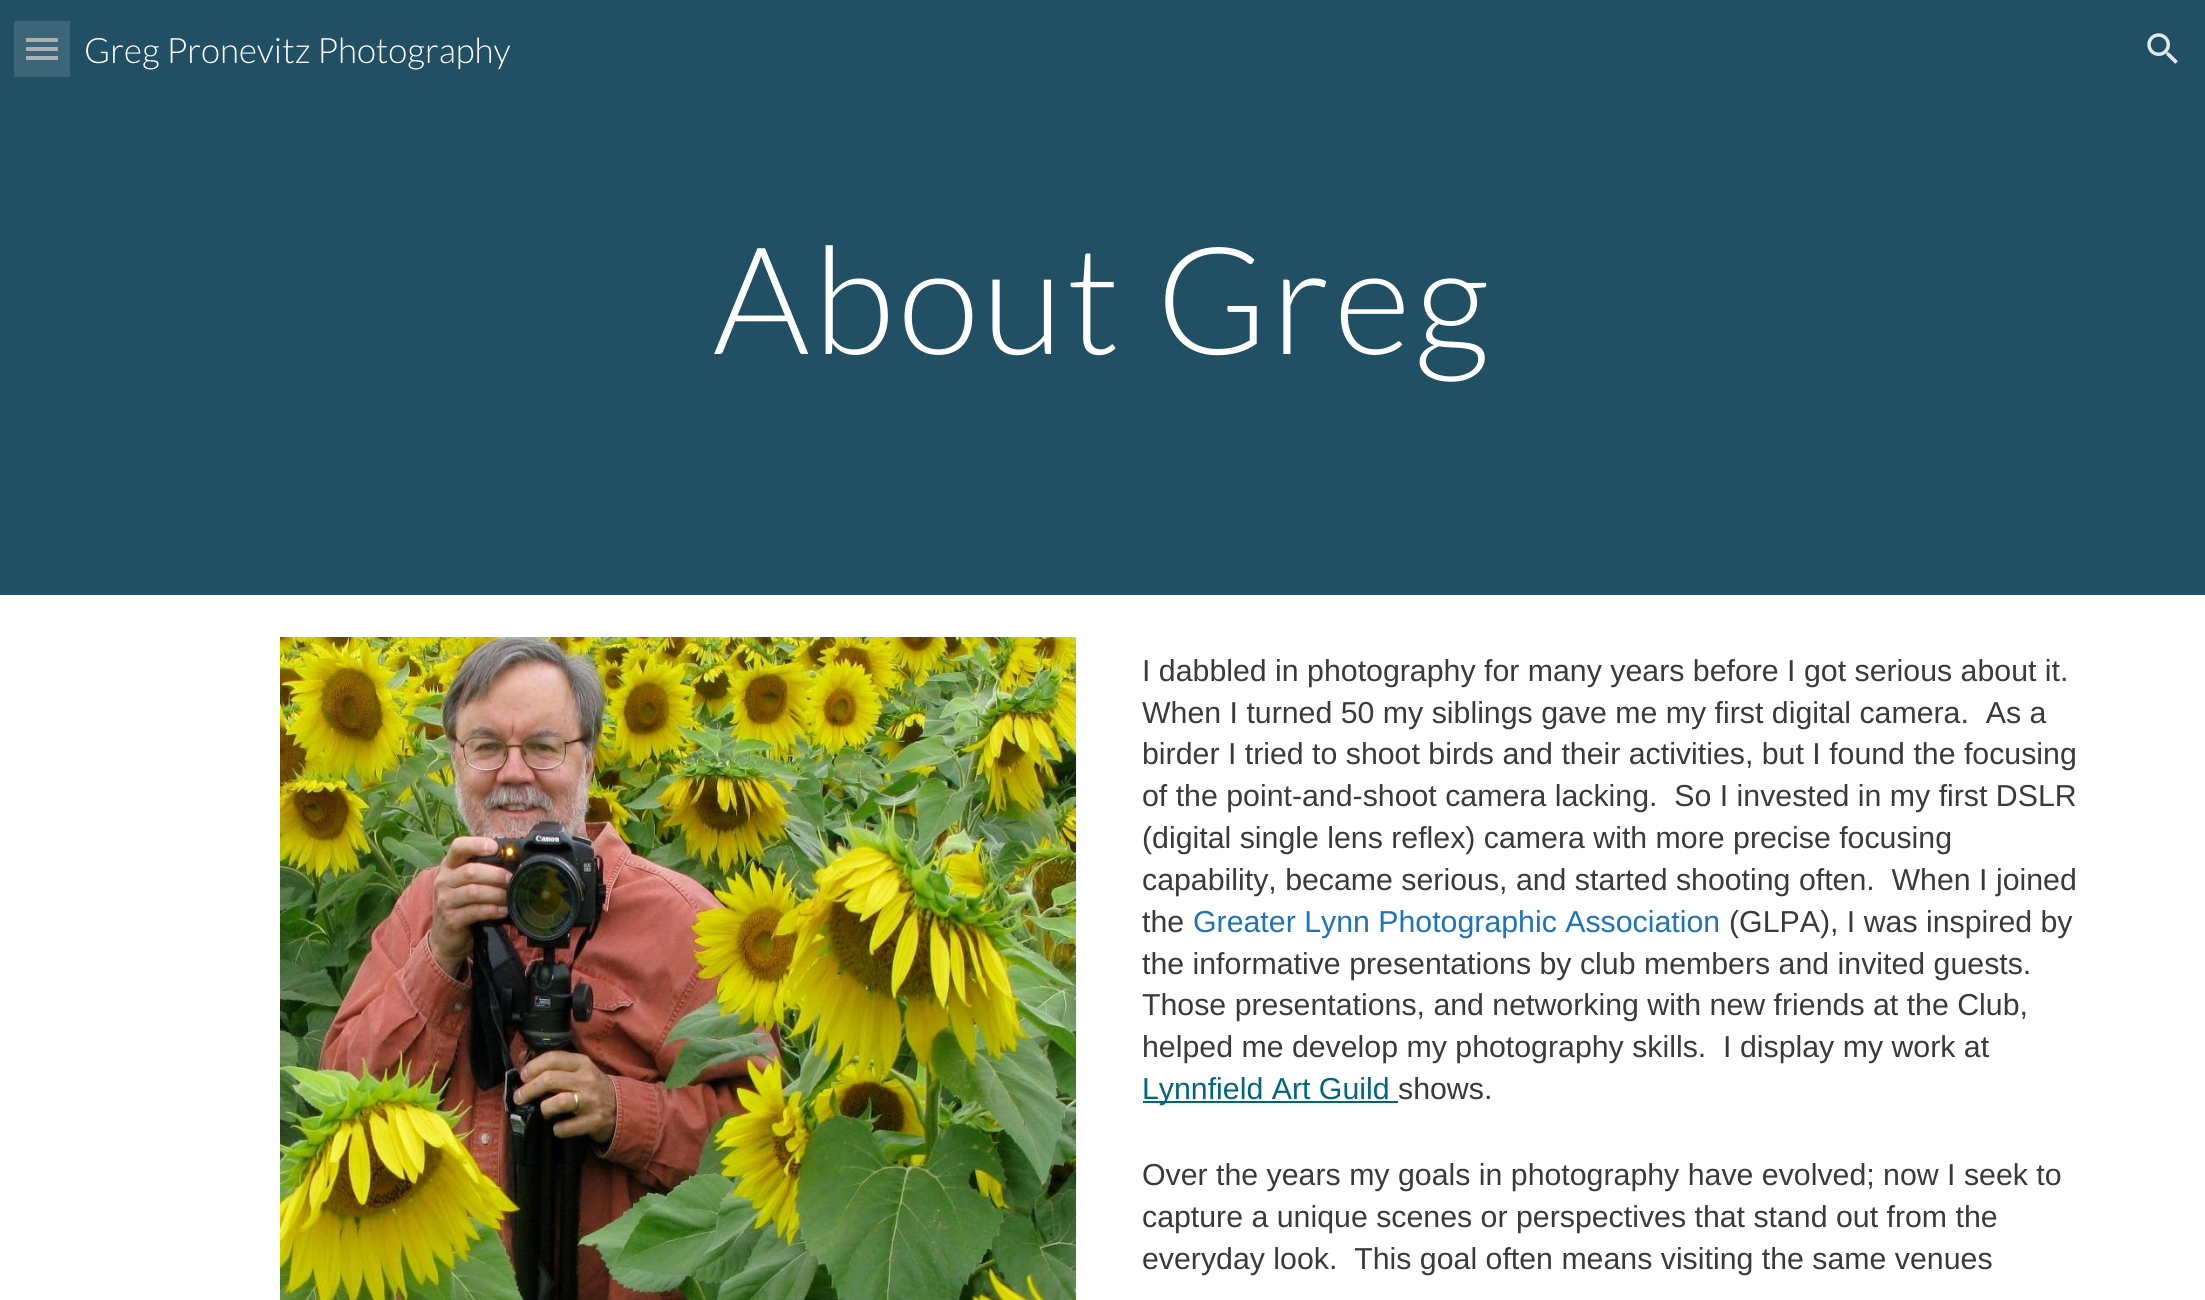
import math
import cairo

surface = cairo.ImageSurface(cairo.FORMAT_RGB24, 2205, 1300)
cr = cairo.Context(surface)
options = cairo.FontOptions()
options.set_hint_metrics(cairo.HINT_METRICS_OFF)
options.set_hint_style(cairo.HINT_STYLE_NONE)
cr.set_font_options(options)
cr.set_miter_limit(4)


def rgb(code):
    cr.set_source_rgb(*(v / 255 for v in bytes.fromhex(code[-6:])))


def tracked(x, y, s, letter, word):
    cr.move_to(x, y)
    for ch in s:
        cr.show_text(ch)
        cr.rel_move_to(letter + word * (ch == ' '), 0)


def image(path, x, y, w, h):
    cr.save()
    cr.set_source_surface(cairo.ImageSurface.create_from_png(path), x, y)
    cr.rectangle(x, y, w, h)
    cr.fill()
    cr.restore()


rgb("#ffffff")
cr.paint()
for x, y, w, h, color in [
    (0, 0, 2205, 595, "#215064"),
    (14, 21, 56, 56, "#3c6577"),
    (26, 38, 32, 4, "#abb1b2"),
    (26, 47, 32, 4, "#abb1b2"),
    (26, 56, 32, 4, "#abb1b2"),
]:
    rgb(color)
    cr.rectangle(x, y, w, h)
    cr.fill()
image("img/1.png", 2147, 33, 31, 31)
image("img/2.png", 280, 637, 797, 663)
rgb("#006580")
cr.rectangle(1143, 1101, 255, 2)
cr.fill()
cr.select_font_face("Lato Light")
cr.set_font_size(35)
rgb("#ffffff")
cr.move_to(84, 63)
cr.show_text("Greg Pronevitz Photography")
cr.set_font_size(149.5)
tracked(713, 354, "About Greg", 3.5, 0)
cr.select_font_face("Liberation Sans")
cr.set_font_size(30.3)
rgb("#3a3a3a")
for x, y, s in [
    (1142, 681, "I dabbled in photography for many years before I got serious about it."),
    (1142, 723, "When I turned 50 my siblings gave me my first digital camera.  As a"),
    (1142, 764, "birder I tried to shoot birds and their activities, but I found the focusing"),
    (1142, 806, "of the point-and-shoot camera lacking.  So I invested in my first DSLR"),
    (1142, 848, "(digital single lens reflex) camera with more precise focusing"),
    (1142, 890, "capability, became serious, and started shooting often.  When I joined"),
    (1142, 932, "the"),
]:
    cr.move_to(x, y)
    cr.show_text(s)
rgb("#1e73be")
cr.move_to(1193, 932)
cr.show_text("Greater Lynn Photographic Association")
rgb("#3a3a3a")
for x, y, s in [
    (1729, 932, "(GLPA), I was inspired by"),
    (1142, 974, "the informative presentations by club members and invited guests."),
    (1142, 1015, "Those presentations, and networking with new friends at the Club,"),
    (1142, 1057, "helped me develop my photography skills.  I display my work at"),
]:
    cr.move_to(x, y)
    cr.show_text(s)
rgb("#006580")
cr.move_to(1142, 1099)
cr.show_text("Lynnfield Art Guild")
rgb("#3a3a3a")
for x, y, s in [
    (1398, 1099, "shows."),
    (1142, 1185, "Over the years my goals in photography have evolved; now I seek to"),
    (1142, 1227, "capture a unique scenes or perspectives that stand out from the"),
    (1142, 1269, "everyday look.  This goal often means visiting the same venues"),
]:
    cr.move_to(x, y)
    cr.show_text(s)
surface.write_to_png("page.png")
